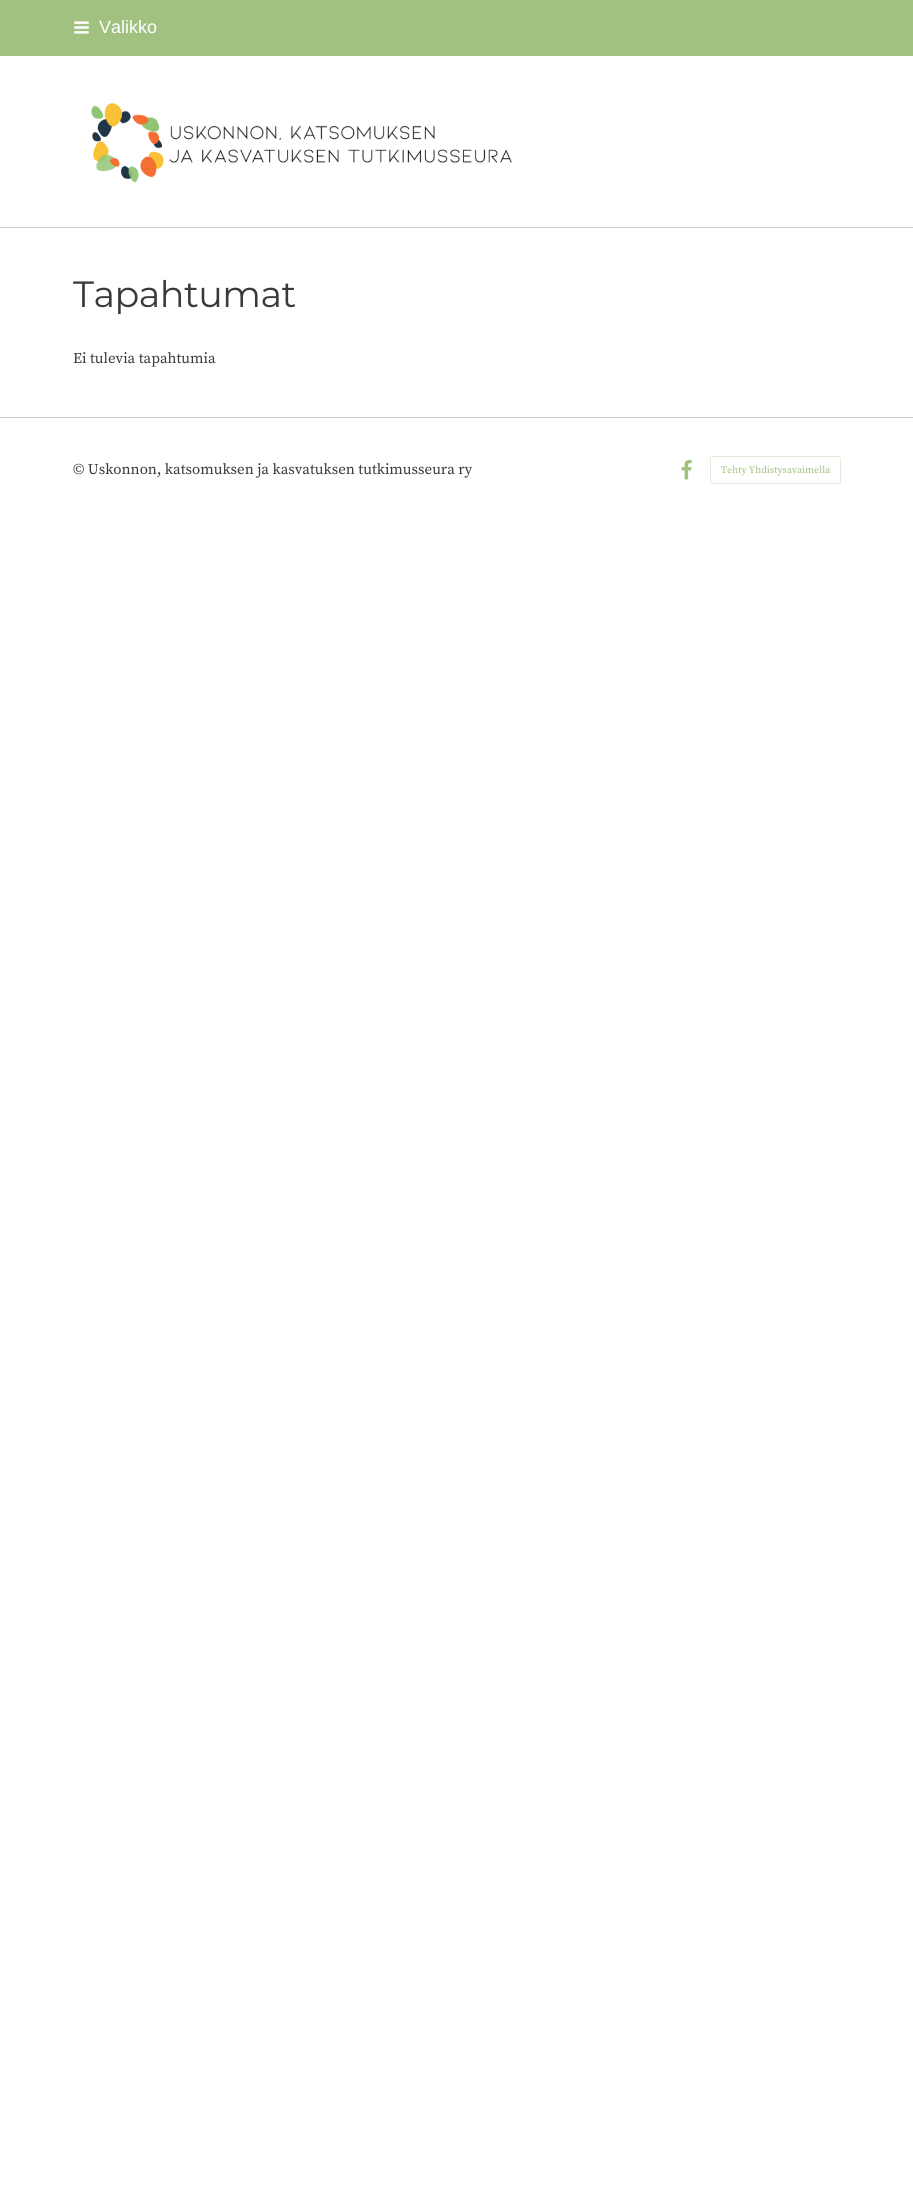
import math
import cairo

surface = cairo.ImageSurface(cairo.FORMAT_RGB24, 913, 2197)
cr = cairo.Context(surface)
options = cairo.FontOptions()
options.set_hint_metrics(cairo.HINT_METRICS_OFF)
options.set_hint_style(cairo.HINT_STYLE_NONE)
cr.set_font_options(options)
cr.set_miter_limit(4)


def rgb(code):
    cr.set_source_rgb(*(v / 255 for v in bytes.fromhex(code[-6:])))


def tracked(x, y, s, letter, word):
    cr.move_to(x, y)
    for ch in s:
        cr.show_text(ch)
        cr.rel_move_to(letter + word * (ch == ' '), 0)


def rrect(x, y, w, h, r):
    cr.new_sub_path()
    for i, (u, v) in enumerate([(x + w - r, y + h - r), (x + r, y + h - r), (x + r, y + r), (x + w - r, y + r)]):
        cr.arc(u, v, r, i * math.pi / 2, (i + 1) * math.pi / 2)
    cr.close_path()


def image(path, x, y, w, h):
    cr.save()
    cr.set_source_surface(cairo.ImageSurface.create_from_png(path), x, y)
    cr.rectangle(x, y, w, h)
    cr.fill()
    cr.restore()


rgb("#ffffff")
cr.paint()
rgb("#a1c181")
cr.rectangle(0, 0, 913, 56)
cr.fill()
image("img/1.png", 74, 21, 15, 13)
rgb("#cccccc")
cr.rectangle(0, 227, 913, 1)
cr.fill()
image("img/2.png", 91, 102, 421, 81)
cr.rectangle(0, 417, 913, 1)
cr.fill()
image("img/3.png", 681, 460, 11, 20)
rrect(710.5, 456.5, 130, 27, 2.5)
rgb("#e3ecd9")
cr.set_line_width(1)
cr.stroke()
cr.select_font_face("Liberation Sans")
cr.set_font_size(18)
rgb("#ffffff")
cr.move_to(99, 33)
cr.show_text("Valikko")
cr.select_font_face("Montserrat Thin")
cr.set_font_size(36.5)
rgb("#3a3a3a")
tracked(73, 307, "Tapahtumat", -0.5, 0)
cr.select_font_face("Source Serif Pro")
cr.set_font_size(14.95)
cr.move_to(73, 363)
cr.show_text("Ei tulevia tapahtumia")
cr.move_to(73, 474)
cr.show_text("© Uskonnon, katsomuksen ja kasvatuksen tutkimusseura ry")
cr.set_font_size(10)
rgb("#a1c181")
cr.move_to(721, 473)
cr.show_text("Tehty Yhdistysavaimella")
surface.write_to_png("page.png")
